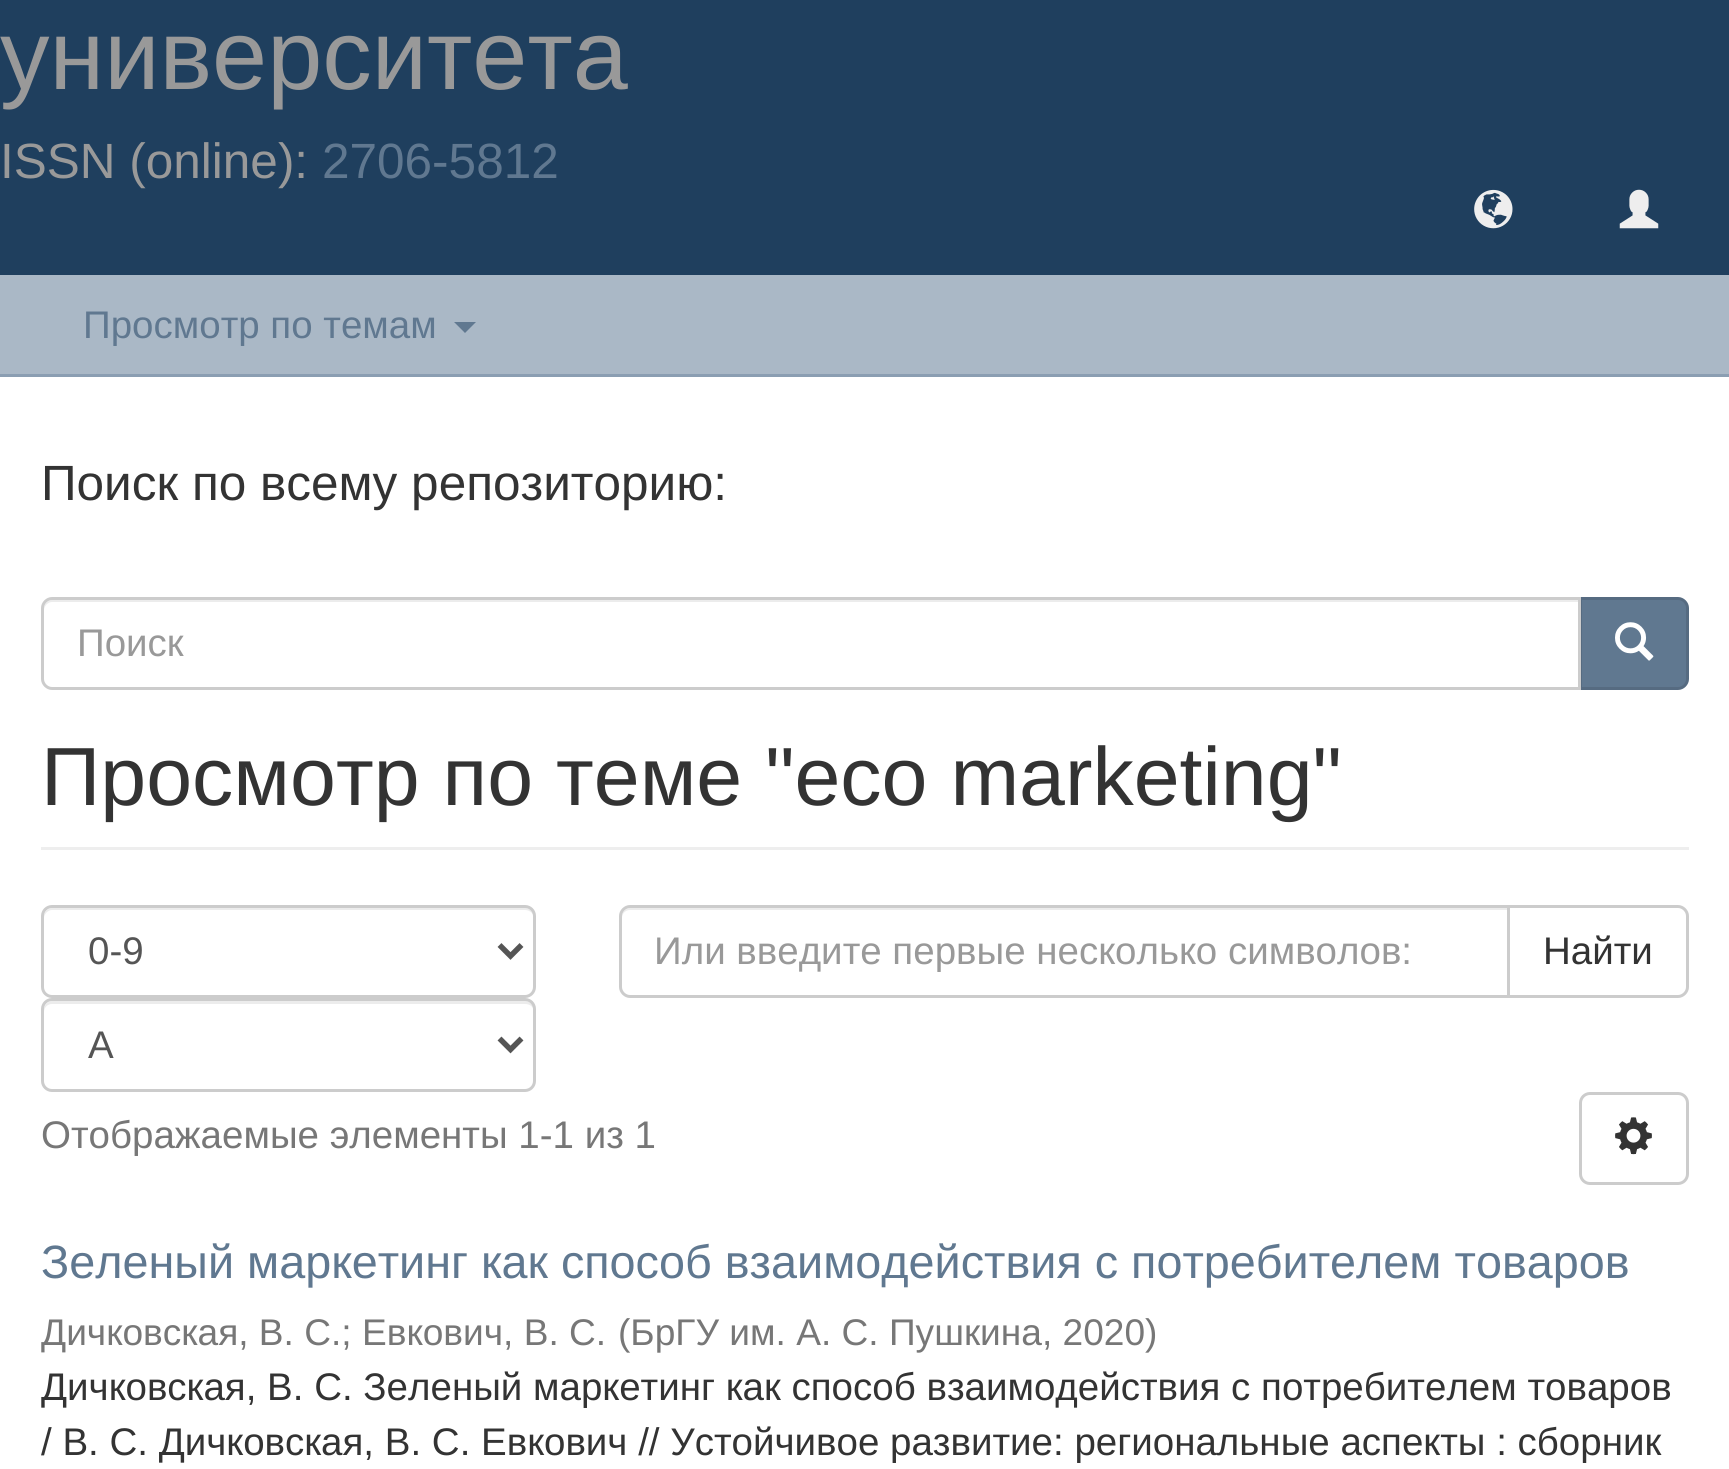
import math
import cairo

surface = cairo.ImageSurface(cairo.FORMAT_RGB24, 1729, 1469)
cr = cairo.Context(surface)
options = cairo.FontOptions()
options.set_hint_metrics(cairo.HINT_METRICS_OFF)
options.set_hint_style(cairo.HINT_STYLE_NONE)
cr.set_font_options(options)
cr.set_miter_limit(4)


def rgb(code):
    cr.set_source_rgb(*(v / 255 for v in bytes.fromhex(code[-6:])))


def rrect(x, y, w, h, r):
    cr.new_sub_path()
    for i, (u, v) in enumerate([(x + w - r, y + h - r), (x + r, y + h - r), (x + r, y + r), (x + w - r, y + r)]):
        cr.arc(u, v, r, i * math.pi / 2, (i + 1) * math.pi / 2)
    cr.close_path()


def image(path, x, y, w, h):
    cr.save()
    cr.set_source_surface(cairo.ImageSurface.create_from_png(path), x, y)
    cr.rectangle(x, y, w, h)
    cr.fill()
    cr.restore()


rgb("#aab8c6")
cr.paint()
rgb("#1f3f5e")
cr.rectangle(0, 0, 1729, 275)
cr.fill()
image("img/1.png", 1474, 189, 39, 40)
image("img/2.png", 1619, 189, 40, 40)
rgb("#8b9eb2")
cr.rectangle(0, 374, 1729, 3)
cr.fill()
rgb("#607890")
cr.new_path()
cr.move_to(454, 322)
cr.line_to(476, 322)
cr.line_to(465, 333)
cr.close_path()
cr.fill()
rgb("#ffffff")
cr.rectangle(0, 377, 1729, 1092)
cr.fill()
rgb("#607890")
cr.new_path()
cr.move_to(1580.5, 598.5)
cr.line_to(1678, 598.5)
cr.curve_to(1683, 598.5, 1687.5, 603, 1687.5, 608)
cr.line_to(1687.5, 679)
cr.curve_to(1687.5, 684, 1683, 688.5, 1678, 688.5)
cr.line_to(1580.5, 688.5)
cr.close_path()
cr.fill_preserve()
rgb("#566b81")
cr.set_line_width(3)
cr.stroke()
rgb("#ffffff")
cr.new_path()
cr.move_to(52, 597)
cr.line_to(1581, 597)
cr.line_to(1581, 690)
cr.line_to(52, 690)
cr.curve_to(46, 690, 41, 685, 41, 679)
cr.line_to(41, 608)
cr.curve_to(41, 602, 46, 597, 52, 597)
cr.close_path()
cr.fill()
rgb("#ececec")
cr.new_path()
cr.move_to(52, 602)
cr.line_to(1578, 602)
cr.line_to(1578, 688)
cr.line_to(1579, 688)
cr.line_to(1579, 600)
cr.line_to(52, 600)
cr.curve_to(48, 600, 44, 604, 44, 608)
cr.line_to(44, 610)
cr.curve_to(44, 606, 48, 602, 52, 602)
cr.close_path()
cr.fill()
cr.new_path()
cr.move_to(52, 598.5)
cr.line_to(1579.5, 598.5)
cr.line_to(1579.5, 688.5)
cr.line_to(52, 688.5)
cr.curve_to(47, 688.5, 42.5, 684, 42.5, 679)
cr.line_to(42.5, 608)
cr.curve_to(42.5, 603, 47, 598.5, 52, 598.5)
cr.close_path()
rgb("#cccccc")
cr.stroke()
image("img/3.png", 1615, 622, 39, 39)
rgb("#eeeeee")
cr.rectangle(41, 847, 1648, 3)
cr.fill()
rgb("#ececec")
cr.new_path()
cr.move_to(52, 910)
cr.line_to(525, 910)
cr.curve_to(530, 910, 534, 914, 534, 918)
cr.line_to(534, 916)
cr.curve_to(534, 912, 530, 908, 526, 908)
cr.line_to(52, 908)
cr.curve_to(48, 908, 44, 912, 44, 916)
cr.line_to(44, 918)
cr.curve_to(44, 914, 48, 910, 52, 910)
cr.close_path()
cr.fill()
rrect(42.5, 906.5, 492, 90, 9.5)
rgb("#cccccc")
cr.stroke()
cr.new_path()
cr.move_to(499.5, 945)
cr.line_to(510.5, 956)
cr.line_to(521.5, 945)
rgb("#555555")
cr.set_line_width(5.5)
cr.stroke()
rgb("#ececec")
cr.new_path()
cr.move_to(52, 1004)
cr.line_to(525, 1004)
cr.curve_to(530, 1004, 534, 1007, 534, 1012)
cr.line_to(534, 1009)
cr.curve_to(534, 1005, 530, 1001, 526, 1001)
cr.line_to(52, 1001)
cr.curve_to(48, 1001, 44, 1005, 44, 1009)
cr.line_to(44, 1012)
cr.curve_to(44, 1007, 48, 1004, 52, 1004)
cr.close_path()
cr.fill()
rrect(42.5, 999.5, 492, 91, 9.5)
rgb("#cccccc")
cr.set_line_width(3)
cr.stroke()
cr.new_path()
cr.move_to(499.5, 1038.5)
cr.line_to(510.5, 1049.5)
cr.line_to(521.5, 1038.5)
rgb("#555555")
cr.set_line_width(5.5)
cr.stroke()
cr.new_path()
cr.move_to(1508.5, 906.5)
cr.line_to(1678, 906.5)
cr.curve_to(1683, 906.5, 1687.5, 911, 1687.5, 916)
cr.line_to(1687.5, 987)
cr.curve_to(1687.5, 992, 1683, 996.5, 1678, 996.5)
cr.line_to(1508.5, 996.5)
cr.close_path()
rgb("#cccccc")
cr.set_line_width(3)
cr.stroke()
rgb("#ffffff")
cr.new_path()
cr.move_to(630, 905)
cr.line_to(1510, 905)
cr.line_to(1510, 998)
cr.line_to(630, 998)
cr.curve_to(624, 998, 619, 993, 619, 987)
cr.line_to(619, 916)
cr.curve_to(619, 910, 624, 905, 630, 905)
cr.close_path()
cr.fill()
rgb("#ececec")
cr.new_path()
cr.move_to(630, 910)
cr.line_to(1507, 910)
cr.line_to(1507, 908)
cr.line_to(630, 908)
cr.curve_to(626, 908, 622, 912, 622, 916)
cr.line_to(622, 918)
cr.curve_to(622, 914, 625, 910, 630, 910)
cr.close_path()
cr.fill()
cr.new_path()
cr.move_to(630, 906.5)
cr.line_to(1508.5, 906.5)
cr.line_to(1508.5, 996.5)
cr.line_to(630, 996.5)
cr.curve_to(625, 996.5, 620.5, 992, 620.5, 987)
cr.line_to(620.5, 916)
cr.curve_to(620.5, 911, 625, 906.5, 630, 906.5)
cr.close_path()
rgb("#cccccc")
cr.stroke()
rrect(1580.5, 1093.5, 107, 90, 9.5)
cr.stroke()
image("img/4.png", 1615, 1117, 37, 38)
cr.select_font_face("Liberation Sans")
cr.set_font_size(99)
rgb("#999999")
cr.move_to(0, 89)
cr.show_text("университета")
cr.set_font_size(49.5)
cr.move_to(0, 178)
cr.show_text("ISSN (online):")
rgb("#607890")
cr.move_to(322, 178)
cr.show_text("2706-5812")
cr.set_font_size(38.5)
cr.move_to(83, 338)
cr.show_text("Просмотр по темам")
cr.set_font_size(49.5)
rgb("#333333")
cr.move_to(41, 500)
cr.show_text("Поиск по всему репозиторию:")
cr.set_font_size(38.5)
rgb("#999999")
cr.move_to(77, 656)
cr.show_text("Поиск")
cr.set_font_size(82.5)
rgb("#333333")
cr.move_to(41, 805)
cr.show_text("Просмотр по теме \"eco marketing\"")
cr.set_font_size(38.5)
rgb("#555555")
cr.move_to(88, 964)
cr.show_text("0-9")
cr.move_to(88, 1058)
cr.show_text("А")
rgb("#999999")
cr.move_to(654, 964)
cr.show_text("Или введите первые несколько символов:")
rgb("#333333")
cr.move_to(1543, 964)
cr.show_text("Найти")
rgb("#777777")
cr.move_to(41, 1148)
cr.show_text("Отображаемые элементы 1-1 из 1")
cr.set_font_size(46.75)
rgb("#607890")
cr.move_to(41, 1278)
cr.show_text("Зеленый маркетинг как способ взаимодействия с потребителем товаров")
cr.set_font_size(37.1)
rgb("#777777")
cr.move_to(41, 1345)
cr.show_text("Дичковская, В. С.; Евкович, В. С.")
cr.move_to(618, 1345)
cr.show_text("(БрГУ им. А. С. Пушкина, 2020)")
cr.set_font_size(38.5)
rgb("#333333")
cr.move_to(41, 1400)
cr.show_text("Дичковская, В. С. Зеленый маркетинг как способ взаимодействия с потребителем товаров")
cr.move_to(41, 1455)
cr.show_text("/ В. С. Дичковская, В. С. Евкович // Устойчивое развитие: региональные аспекты : сборник")
surface.write_to_png("page.png")
